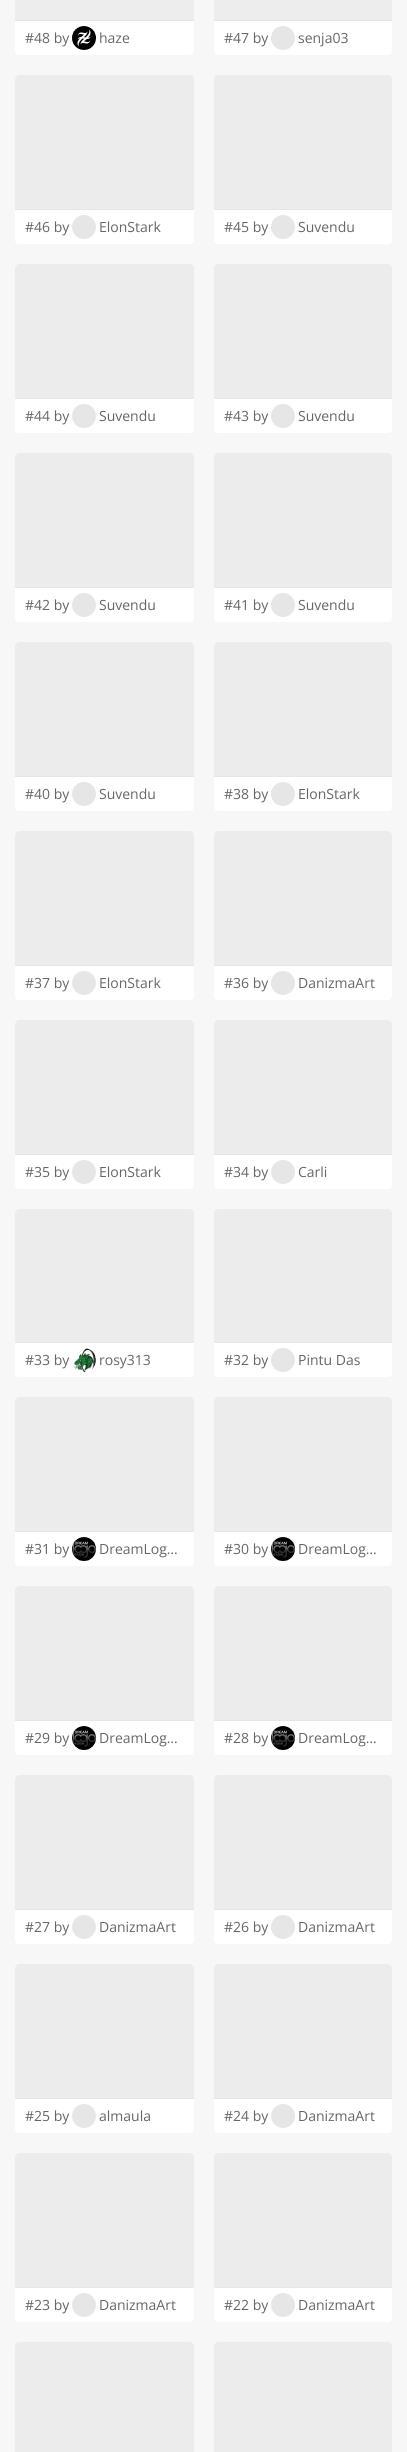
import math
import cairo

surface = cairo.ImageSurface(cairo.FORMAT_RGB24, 407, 2452)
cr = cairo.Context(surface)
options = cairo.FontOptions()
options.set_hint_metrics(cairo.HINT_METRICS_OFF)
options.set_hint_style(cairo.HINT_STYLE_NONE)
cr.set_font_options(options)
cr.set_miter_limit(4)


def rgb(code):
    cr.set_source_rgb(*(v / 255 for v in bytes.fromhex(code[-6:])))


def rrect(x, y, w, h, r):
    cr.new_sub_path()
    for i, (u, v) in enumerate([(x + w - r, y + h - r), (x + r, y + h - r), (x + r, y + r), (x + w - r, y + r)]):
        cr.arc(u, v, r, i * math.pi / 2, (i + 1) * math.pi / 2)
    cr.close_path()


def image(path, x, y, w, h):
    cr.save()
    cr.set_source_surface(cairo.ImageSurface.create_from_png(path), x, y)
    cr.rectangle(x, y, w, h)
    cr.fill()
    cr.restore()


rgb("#f7f7f7")
cr.paint()
rgb("#ffffff")
rrect(15, -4, 179, 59, 4)
cr.fill()
rgb("#ededed")
cr.rectangle(15, 0, 179, 20)
cr.fill()
rgb("#e6e6e6")
cr.rectangle(15, 20, 179, 1)
cr.fill()
image("img/1.png", 72, 26, 24, 24)
rgb("#ffffff")
rrect(214, -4, 178, 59, 4)
cr.fill()
rgb("#ededed")
cr.rectangle(214, 0, 178, 20)
cr.fill()
rgb("#e6e6e6")
cr.rectangle(214, 20, 178, 1)
cr.fill()
cr.arc(283, 38, 12, 0, 2 * math.pi)
cr.fill()
rgb("#ffffff")
rrect(15, 75, 179, 169, 4)
cr.fill()
rgb("#ececec")
cr.new_path()
cr.move_to(19, 75)
cr.line_to(190, 75)
cr.curve_to(192, 75, 194, 77, 194, 79)
cr.line_to(194, 209)
cr.line_to(15, 209)
cr.line_to(15, 79)
cr.curve_to(15, 77, 17, 75, 19, 75)
cr.close_path()
cr.fill()
rgb("#e6e6e6")
cr.rectangle(15, 209, 179, 1)
cr.fill()
cr.arc(84, 227, 12, 0, 2 * math.pi)
cr.fill()
rgb("#ffffff")
rrect(214, 75, 178, 169, 4)
cr.fill()
rgb("#ececec")
cr.new_path()
cr.move_to(218, 75)
cr.line_to(388, 75)
cr.curve_to(390, 75, 392, 77, 392, 79)
cr.line_to(392, 209)
cr.line_to(214, 209)
cr.line_to(214, 79)
cr.curve_to(214, 77, 216, 75, 218, 75)
cr.close_path()
cr.fill()
rgb("#e6e6e6")
cr.rectangle(214, 209, 178, 1)
cr.fill()
cr.arc(283, 227, 12, 0, 2 * math.pi)
cr.fill()
rgb("#ffffff")
rrect(15, 264, 179, 169, 4)
cr.fill()
rgb("#ececec")
cr.new_path()
cr.move_to(19, 264)
cr.line_to(190, 264)
cr.curve_to(192, 264, 194, 266, 194, 268)
cr.line_to(194, 398)
cr.line_to(15, 398)
cr.line_to(15, 268)
cr.curve_to(15, 266, 17, 264, 19, 264)
cr.close_path()
cr.fill()
rgb("#e6e6e6")
cr.rectangle(15, 398, 179, 1)
cr.fill()
cr.arc(84, 416, 12, 0, 2 * math.pi)
cr.fill()
rgb("#ffffff")
rrect(214, 264, 178, 169, 4)
cr.fill()
rgb("#ececec")
cr.new_path()
cr.move_to(218, 264)
cr.line_to(388, 264)
cr.curve_to(390, 264, 392, 266, 392, 268)
cr.line_to(392, 398)
cr.line_to(214, 398)
cr.line_to(214, 268)
cr.curve_to(214, 266, 216, 264, 218, 264)
cr.close_path()
cr.fill()
rgb("#e6e6e6")
cr.rectangle(214, 398, 178, 1)
cr.fill()
cr.arc(283, 416, 12, 0, 2 * math.pi)
cr.fill()
rgb("#ffffff")
rrect(15, 453, 179, 169, 4)
cr.fill()
rgb("#ececec")
cr.new_path()
cr.move_to(19, 453)
cr.line_to(190, 453)
cr.curve_to(192, 453, 194, 455, 194, 457)
cr.line_to(194, 587)
cr.line_to(15, 587)
cr.line_to(15, 457)
cr.curve_to(15, 455, 17, 453, 19, 453)
cr.close_path()
cr.fill()
rgb("#e6e6e6")
cr.rectangle(15, 587, 179, 1)
cr.fill()
cr.arc(84, 605, 12, 0, 2 * math.pi)
cr.fill()
rgb("#ffffff")
rrect(214, 453, 178, 169, 4)
cr.fill()
rgb("#ececec")
cr.new_path()
cr.move_to(218, 453)
cr.line_to(388, 453)
cr.curve_to(390, 453, 392, 455, 392, 457)
cr.line_to(392, 587)
cr.line_to(214, 587)
cr.line_to(214, 457)
cr.curve_to(214, 455, 216, 453, 218, 453)
cr.close_path()
cr.fill()
rgb("#e6e6e6")
cr.rectangle(214, 587, 178, 1)
cr.fill()
cr.arc(283, 605, 12, 0, 2 * math.pi)
cr.fill()
rgb("#ffffff")
rrect(15, 642, 179, 169, 4)
cr.fill()
rgb("#ececec")
cr.new_path()
cr.move_to(19, 642)
cr.line_to(190, 642)
cr.curve_to(192, 642, 194, 644, 194, 646)
cr.line_to(194, 776)
cr.line_to(15, 776)
cr.line_to(15, 646)
cr.curve_to(15, 644, 17, 642, 19, 642)
cr.close_path()
cr.fill()
rgb("#e6e6e6")
cr.rectangle(15, 776, 179, 1)
cr.fill()
cr.arc(84, 794, 12, 0, 2 * math.pi)
cr.fill()
rgb("#ffffff")
rrect(214, 642, 178, 169, 4)
cr.fill()
rgb("#ececec")
cr.new_path()
cr.move_to(218, 642)
cr.line_to(388, 642)
cr.curve_to(390, 642, 392, 644, 392, 646)
cr.line_to(392, 776)
cr.line_to(214, 776)
cr.line_to(214, 646)
cr.curve_to(214, 644, 216, 642, 218, 642)
cr.close_path()
cr.fill()
rgb("#e6e6e6")
cr.rectangle(214, 776, 178, 1)
cr.fill()
cr.arc(283, 794, 12, 0, 2 * math.pi)
cr.fill()
rgb("#ffffff")
rrect(15, 831, 179, 169, 4)
cr.fill()
rgb("#ececec")
cr.new_path()
cr.move_to(19, 831)
cr.line_to(190, 831)
cr.curve_to(192, 831, 194, 833, 194, 835)
cr.line_to(194, 965)
cr.line_to(15, 965)
cr.line_to(15, 835)
cr.curve_to(15, 833, 17, 831, 19, 831)
cr.close_path()
cr.fill()
rgb("#e6e6e6")
cr.rectangle(15, 965, 179, 1)
cr.fill()
cr.arc(84, 983, 12, 0, 2 * math.pi)
cr.fill()
rgb("#ffffff")
rrect(214, 831, 178, 169, 4)
cr.fill()
rgb("#ececec")
cr.new_path()
cr.move_to(218, 831)
cr.line_to(388, 831)
cr.curve_to(390, 831, 392, 833, 392, 835)
cr.line_to(392, 965)
cr.line_to(214, 965)
cr.line_to(214, 835)
cr.curve_to(214, 833, 216, 831, 218, 831)
cr.close_path()
cr.fill()
rgb("#e6e6e6")
cr.rectangle(214, 965, 178, 1)
cr.fill()
cr.arc(283, 983, 12, 0, 2 * math.pi)
cr.fill()
rgb("#ffffff")
rrect(15, 1020, 179, 169, 4)
cr.fill()
rgb("#ececec")
cr.new_path()
cr.move_to(19, 1020)
cr.line_to(190, 1020)
cr.curve_to(192, 1020, 194, 1022, 194, 1024)
cr.line_to(194, 1154)
cr.line_to(15, 1154)
cr.line_to(15, 1024)
cr.curve_to(15, 1022, 17, 1020, 19, 1020)
cr.close_path()
cr.fill()
rgb("#e6e6e6")
cr.rectangle(15, 1154, 179, 1)
cr.fill()
cr.arc(84, 1172, 12, 0, 2 * math.pi)
cr.fill()
rgb("#ffffff")
rrect(214, 1020, 178, 169, 4)
cr.fill()
rgb("#ececec")
cr.new_path()
cr.move_to(218, 1020)
cr.line_to(388, 1020)
cr.curve_to(390, 1020, 392, 1022, 392, 1024)
cr.line_to(392, 1154)
cr.line_to(214, 1154)
cr.line_to(214, 1024)
cr.curve_to(214, 1022, 216, 1020, 218, 1020)
cr.close_path()
cr.fill()
rgb("#e6e6e6")
cr.rectangle(214, 1154, 178, 1)
cr.fill()
cr.arc(283, 1172, 12, 0, 2 * math.pi)
cr.fill()
rgb("#ffffff")
rrect(15, 1209, 179, 168, 4)
cr.fill()
rgb("#ececec")
cr.new_path()
cr.move_to(19, 1209)
cr.line_to(190, 1209)
cr.curve_to(192, 1209, 194, 1211, 194, 1213)
cr.line_to(194, 1342)
cr.line_to(15, 1342)
cr.line_to(15, 1213)
cr.curve_to(15, 1211, 17, 1209, 19, 1209)
cr.close_path()
cr.fill()
rgb("#e6e6e6")
cr.rectangle(15, 1342, 179, 1)
cr.fill()
image("img/2.png", 72, 1348, 24, 24)
rgb("#ffffff")
rrect(214, 1209, 178, 168, 4)
cr.fill()
rgb("#ececec")
cr.new_path()
cr.move_to(218, 1209)
cr.line_to(388, 1209)
cr.curve_to(390, 1209, 392, 1211, 392, 1213)
cr.line_to(392, 1342)
cr.line_to(214, 1342)
cr.line_to(214, 1213)
cr.curve_to(214, 1211, 216, 1209, 218, 1209)
cr.close_path()
cr.fill()
rgb("#e6e6e6")
cr.rectangle(214, 1342, 178, 1)
cr.fill()
cr.arc(283, 1360, 12, 0, 2 * math.pi)
cr.fill()
rgb("#ffffff")
rrect(15, 1397, 179, 169, 4)
cr.fill()
rgb("#ececec")
cr.new_path()
cr.move_to(19, 1397)
cr.line_to(190, 1397)
cr.curve_to(192, 1397, 194, 1399, 194, 1401)
cr.line_to(194, 1531)
cr.line_to(15, 1531)
cr.line_to(15, 1401)
cr.curve_to(15, 1399, 17, 1397, 19, 1397)
cr.close_path()
cr.fill()
rgb("#e6e6e6")
cr.rectangle(15, 1531, 179, 1)
cr.fill()
image("img/3.png", 72, 1537, 24, 24)
rgb("#ffffff")
rrect(214, 1397, 178, 169, 4)
cr.fill()
rgb("#ececec")
cr.new_path()
cr.move_to(218, 1397)
cr.line_to(388, 1397)
cr.curve_to(390, 1397, 392, 1399, 392, 1401)
cr.line_to(392, 1531)
cr.line_to(214, 1531)
cr.line_to(214, 1401)
cr.curve_to(214, 1399, 216, 1397, 218, 1397)
cr.close_path()
cr.fill()
rgb("#e6e6e6")
cr.rectangle(214, 1531, 178, 1)
cr.fill()
image("img/3.png", 271, 1537, 24, 24)
rgb("#ffffff")
rrect(15, 1586, 179, 169, 4)
cr.fill()
rgb("#ececec")
cr.new_path()
cr.move_to(19, 1586)
cr.line_to(190, 1586)
cr.curve_to(192, 1586, 194, 1588, 194, 1590)
cr.line_to(194, 1720)
cr.line_to(15, 1720)
cr.line_to(15, 1590)
cr.curve_to(15, 1588, 17, 1586, 19, 1586)
cr.close_path()
cr.fill()
rgb("#e6e6e6")
cr.rectangle(15, 1720, 179, 1)
cr.fill()
image("img/3.png", 72, 1726, 24, 24)
rgb("#ffffff")
rrect(214, 1586, 178, 169, 4)
cr.fill()
rgb("#ececec")
cr.new_path()
cr.move_to(218, 1586)
cr.line_to(388, 1586)
cr.curve_to(390, 1586, 392, 1588, 392, 1590)
cr.line_to(392, 1720)
cr.line_to(214, 1720)
cr.line_to(214, 1590)
cr.curve_to(214, 1588, 216, 1586, 218, 1586)
cr.close_path()
cr.fill()
rgb("#e6e6e6")
cr.rectangle(214, 1720, 178, 1)
cr.fill()
image("img/3.png", 271, 1726, 24, 24)
rgb("#ffffff")
rrect(15, 1775, 179, 169, 4)
cr.fill()
rgb("#ececec")
cr.new_path()
cr.move_to(19, 1775)
cr.line_to(190, 1775)
cr.curve_to(192, 1775, 194, 1777, 194, 1779)
cr.line_to(194, 1909)
cr.line_to(15, 1909)
cr.line_to(15, 1779)
cr.curve_to(15, 1777, 17, 1775, 19, 1775)
cr.close_path()
cr.fill()
rgb("#e6e6e6")
cr.rectangle(15, 1909, 179, 1)
cr.fill()
cr.arc(84, 1927, 12, 0, 2 * math.pi)
cr.fill()
rgb("#ffffff")
rrect(214, 1775, 178, 169, 4)
cr.fill()
rgb("#ececec")
cr.new_path()
cr.move_to(218, 1775)
cr.line_to(388, 1775)
cr.curve_to(390, 1775, 392, 1777, 392, 1779)
cr.line_to(392, 1909)
cr.line_to(214, 1909)
cr.line_to(214, 1779)
cr.curve_to(214, 1777, 216, 1775, 218, 1775)
cr.close_path()
cr.fill()
rgb("#e6e6e6")
cr.rectangle(214, 1909, 178, 1)
cr.fill()
cr.arc(283, 1927, 12, 0, 2 * math.pi)
cr.fill()
rgb("#ffffff")
rrect(15, 1964, 179, 169, 4)
cr.fill()
rgb("#ececec")
cr.new_path()
cr.move_to(19, 1964)
cr.line_to(190, 1964)
cr.curve_to(192, 1964, 194, 1966, 194, 1968)
cr.line_to(194, 2098)
cr.line_to(15, 2098)
cr.line_to(15, 1968)
cr.curve_to(15, 1966, 17, 1964, 19, 1964)
cr.close_path()
cr.fill()
rgb("#e6e6e6")
cr.rectangle(15, 2098, 179, 1)
cr.fill()
cr.arc(84, 2116, 12, 0, 2 * math.pi)
cr.fill()
rgb("#ffffff")
rrect(214, 1964, 178, 169, 4)
cr.fill()
rgb("#ececec")
cr.new_path()
cr.move_to(218, 1964)
cr.line_to(388, 1964)
cr.curve_to(390, 1964, 392, 1966, 392, 1968)
cr.line_to(392, 2098)
cr.line_to(214, 2098)
cr.line_to(214, 1968)
cr.curve_to(214, 1966, 216, 1964, 218, 1964)
cr.close_path()
cr.fill()
rgb("#e6e6e6")
cr.rectangle(214, 2098, 178, 1)
cr.fill()
cr.arc(283, 2116, 12, 0, 2 * math.pi)
cr.fill()
rgb("#ffffff")
rrect(15, 2153, 179, 169, 4)
cr.fill()
rgb("#ececec")
cr.new_path()
cr.move_to(19, 2153)
cr.line_to(190, 2153)
cr.curve_to(192, 2153, 194, 2155, 194, 2157)
cr.line_to(194, 2287)
cr.line_to(15, 2287)
cr.line_to(15, 2157)
cr.curve_to(15, 2155, 17, 2153, 19, 2153)
cr.close_path()
cr.fill()
rgb("#e6e6e6")
cr.rectangle(15, 2287, 179, 1)
cr.fill()
cr.arc(84, 2305, 12, 0, 2 * math.pi)
cr.fill()
rgb("#ffffff")
rrect(214, 2153, 178, 169, 4)
cr.fill()
rgb("#ececec")
cr.new_path()
cr.move_to(218, 2153)
cr.line_to(388, 2153)
cr.curve_to(390, 2153, 392, 2155, 392, 2157)
cr.line_to(392, 2287)
cr.line_to(214, 2287)
cr.line_to(214, 2157)
cr.curve_to(214, 2155, 216, 2153, 218, 2153)
cr.close_path()
cr.fill()
rgb("#e6e6e6")
cr.rectangle(214, 2287, 178, 1)
cr.fill()
cr.arc(283, 2305, 12, 0, 2 * math.pi)
cr.fill()
rgb("#ececec")
cr.new_path()
cr.move_to(19, 2342)
cr.line_to(190, 2342)
cr.curve_to(192, 2342, 194, 2344, 194, 2346)
cr.line_to(194, 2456)
cr.line_to(15, 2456)
cr.line_to(15, 2346)
cr.curve_to(15, 2344, 17, 2342, 19, 2342)
cr.close_path()
cr.fill()
cr.new_path()
cr.move_to(218, 2342)
cr.line_to(388, 2342)
cr.curve_to(390, 2342, 392, 2344, 392, 2346)
cr.line_to(392, 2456)
cr.line_to(214, 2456)
cr.line_to(214, 2346)
cr.curve_to(214, 2344, 216, 2342, 218, 2342)
cr.close_path()
cr.fill()
cr.select_font_face("Open Sans")
cr.set_font_size(14)
rgb("#666666")
for x, y, s in [
    (25, 43, "#48 by"),
    (99, 43, "haze"),
    (224, 43, "#47 by"),
    (298, 43, "senja03"),
    (25, 232, "#46 by"),
    (99, 232, "ElonStark"),
    (224, 232, "#45 by"),
    (298, 232, "Suvendu"),
    (25, 421, "#44 by"),
    (99, 421, "Suvendu"),
    (224, 421, "#43 by"),
    (298, 421, "Suvendu"),
    (25, 610, "#42 by"),
    (99, 610, "Suvendu"),
    (224, 610, "#41 by"),
    (298, 610, "Suvendu"),
    (25, 799, "#40 by"),
    (99, 799, "Suvendu"),
    (224, 799, "#38 by"),
    (298, 799, "ElonStark"),
    (25, 988, "#37 by"),
    (99, 988, "ElonStark"),
    (224, 988, "#36 by"),
    (298, 988, "DanizmaArt"),
    (25, 1177, "#35 by"),
    (99, 1177, "ElonStark"),
    (224, 1177, "#34 by"),
    (298, 1177, "Carli"),
    (25, 1365, "#33 by"),
    (99, 1365, "rosy313"),
    (224, 1365, "#32 by"),
    (298, 1365, "Pintu Das"),
    (25, 1554, "#31 by"),
    (99, 1554, "DreamLog…"),
    (224, 1554, "#30 by"),
    (298, 1554, "DreamLog…"),
    (25, 1743, "#29 by"),
    (99, 1743, "DreamLog…"),
    (224, 1743, "#28 by"),
    (298, 1743, "DreamLog…"),
    (25, 1932, "#27 by"),
    (99, 1932, "DanizmaArt"),
    (224, 1932, "#26 by"),
    (298, 1932, "DanizmaArt"),
    (25, 2121, "#25 by"),
    (99, 2121, "almaula"),
    (224, 2121, "#24 by"),
    (298, 2121, "DanizmaArt"),
    (25, 2310, "#23 by"),
    (99, 2310, "DanizmaArt"),
    (224, 2310, "#22 by"),
    (298, 2310, "DanizmaArt"),
]:
    cr.move_to(x, y)
    cr.show_text(s)
surface.write_to_png("page.png")
